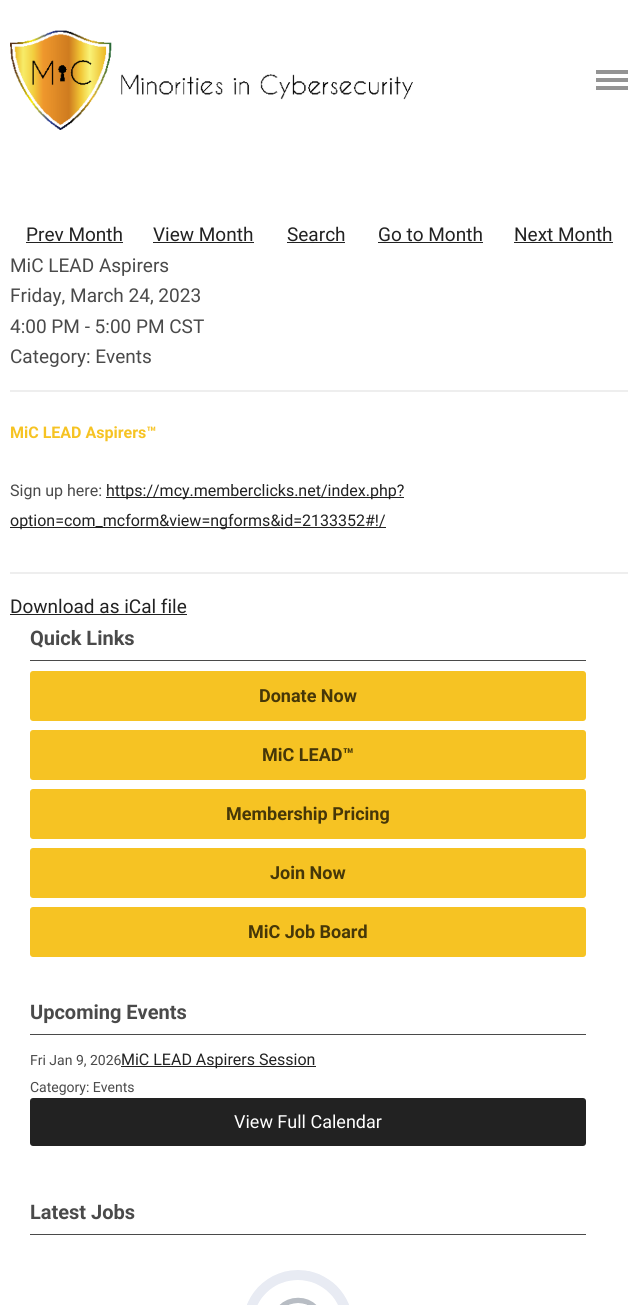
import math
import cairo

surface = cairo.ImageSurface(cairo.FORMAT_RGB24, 638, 1305)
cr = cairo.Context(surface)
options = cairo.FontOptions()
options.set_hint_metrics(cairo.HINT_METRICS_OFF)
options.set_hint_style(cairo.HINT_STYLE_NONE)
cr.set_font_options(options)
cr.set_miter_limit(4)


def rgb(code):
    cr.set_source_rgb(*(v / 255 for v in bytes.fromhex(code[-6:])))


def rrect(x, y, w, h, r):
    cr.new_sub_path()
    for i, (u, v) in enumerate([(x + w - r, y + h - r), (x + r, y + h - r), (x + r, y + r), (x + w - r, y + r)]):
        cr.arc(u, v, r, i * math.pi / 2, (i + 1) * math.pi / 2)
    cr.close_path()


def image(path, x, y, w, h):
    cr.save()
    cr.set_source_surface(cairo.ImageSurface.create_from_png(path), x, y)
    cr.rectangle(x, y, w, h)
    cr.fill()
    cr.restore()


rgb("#ffffff")
cr.paint()
image("img/1.png", 10, 30, 403, 100)
image("img/2.png", 596, 70, 32, 20)
for x, y, w, h, color in [
    (26, 242, 97, 1, "#222222"),
    (153, 242, 101, 1, "#222222"),
    (287, 242, 58, 1, "#222222"),
    (378, 242, 105, 1, "#222222"),
    (514, 242, 99, 1, "#222222"),
    (10, 390, 618, 2, "#eeeeee"),
    (106, 497, 298, 1, "#222222"),
    (10, 527, 376, 1, "#222222"),
    (10, 572, 618, 2, "#eeeeee"),
    (10, 614, 177, 1, "#222222"),
    (30, 660, 556, 1, "#4a4a4a"),
]:
    rgb(color)
    cr.rectangle(x, y, w, h)
    cr.fill()
rgb("#f6c323")
rrect(30, 671, 556, 50, 3)
cr.fill()
rrect(30, 730, 556, 50, 3)
cr.fill()
rrect(30, 789, 556, 50, 3)
cr.fill()
rrect(30, 848, 556, 50, 3)
cr.fill()
rrect(30, 907, 556, 50, 3)
cr.fill()
rgb("#4a4a4a")
cr.rectangle(30, 1034, 556, 1)
cr.fill()
rgb("#222222")
cr.rectangle(121, 1066, 195, 1)
cr.fill()
rrect(30, 1098, 556, 48, 3)
cr.fill()
rgb("#4a4a4a")
cr.rectangle(30, 1234, 556, 1)
cr.fill()
image("img/3.png", 247, 1270, 102, 35)
cr.select_font_face("Roboto")
cr.set_font_size(19)
rgb("#222222")
for x, y, s in [
    (26, 241, "Prev Month"),
    (153, 241, "View Month"),
    (287, 241, "Search"),
    (378, 241, "Go to Month"),
    (514, 241, "Next Month"),
]:
    cr.move_to(x, y)
    cr.show_text(s)
rgb("#4a4a4a")
for x, y, s in [
    (10, 272, "MiC LEAD Aspirers"),
    (10, 302, "Friday, March 24, 2023"),
    (10, 333, "4:00 PM - 5:00 PM CST"),
    (10, 363, "Category: Events"),
]:
    cr.move_to(x, y)
    cr.show_text(s)
cr.select_font_face("Roboto", cairo.FONT_SLANT_NORMAL, cairo.FONT_WEIGHT_BOLD)
cr.set_font_size(16)
rgb("#f6c323")
cr.move_to(10, 438)
cr.show_text("MiC LEAD Aspirers™")
cr.select_font_face("Roboto")
rgb("#4a4a4a")
cr.move_to(10, 496)
cr.show_text("Sign up here:")
rgb("#222222")
cr.move_to(106, 496)
cr.show_text("https://mcy.memberclicks.net/index.php?")
cr.move_to(10, 526)
cr.show_text("option=com_mcform&view=ngforms&id=2133352#!/")
cr.set_font_size(19)
cr.move_to(10, 613)
cr.show_text("Download as iCal file")
cr.select_font_face("Roboto", cairo.FONT_SLANT_NORMAL, cairo.FONT_WEIGHT_BOLD)
cr.set_font_size(20)
rgb("#4a4a4a")
cr.move_to(30, 645)
cr.show_text("Quick Links")
cr.set_font_size(18)
rgb("#463708")
for x, y, s in [
    (259, 702, "Donate Now"),
    (262, 761, "MiC LEAD™"),
    (226, 820, "Membership Pricing"),
    (270, 879, "Join Now"),
    (248, 938, "MiC Job Board"),
]:
    cr.move_to(x, y)
    cr.show_text(s)
cr.set_font_size(20)
rgb("#4a4a4a")
cr.move_to(30, 1019)
cr.show_text("Upcoming Events")
cr.select_font_face("Roboto")
cr.set_font_size(14)
cr.move_to(30, 1065)
cr.show_text("Fri Jan 9, 2026")
cr.set_font_size(16)
rgb("#222222")
cr.move_to(121, 1065)
cr.show_text("MiC LEAD Aspirers Session")
cr.set_font_size(14)
rgb("#4a4a4a")
cr.move_to(30, 1092)
cr.show_text("Category: Events")
cr.set_font_size(18)
rgb("#ffffff")
cr.move_to(234, 1128)
cr.show_text("View Full Calendar")
cr.select_font_face("Roboto", cairo.FONT_SLANT_NORMAL, cairo.FONT_WEIGHT_BOLD)
cr.set_font_size(20)
rgb("#4a4a4a")
cr.move_to(30, 1219)
cr.show_text("Latest Jobs")
surface.write_to_png("page.png")
